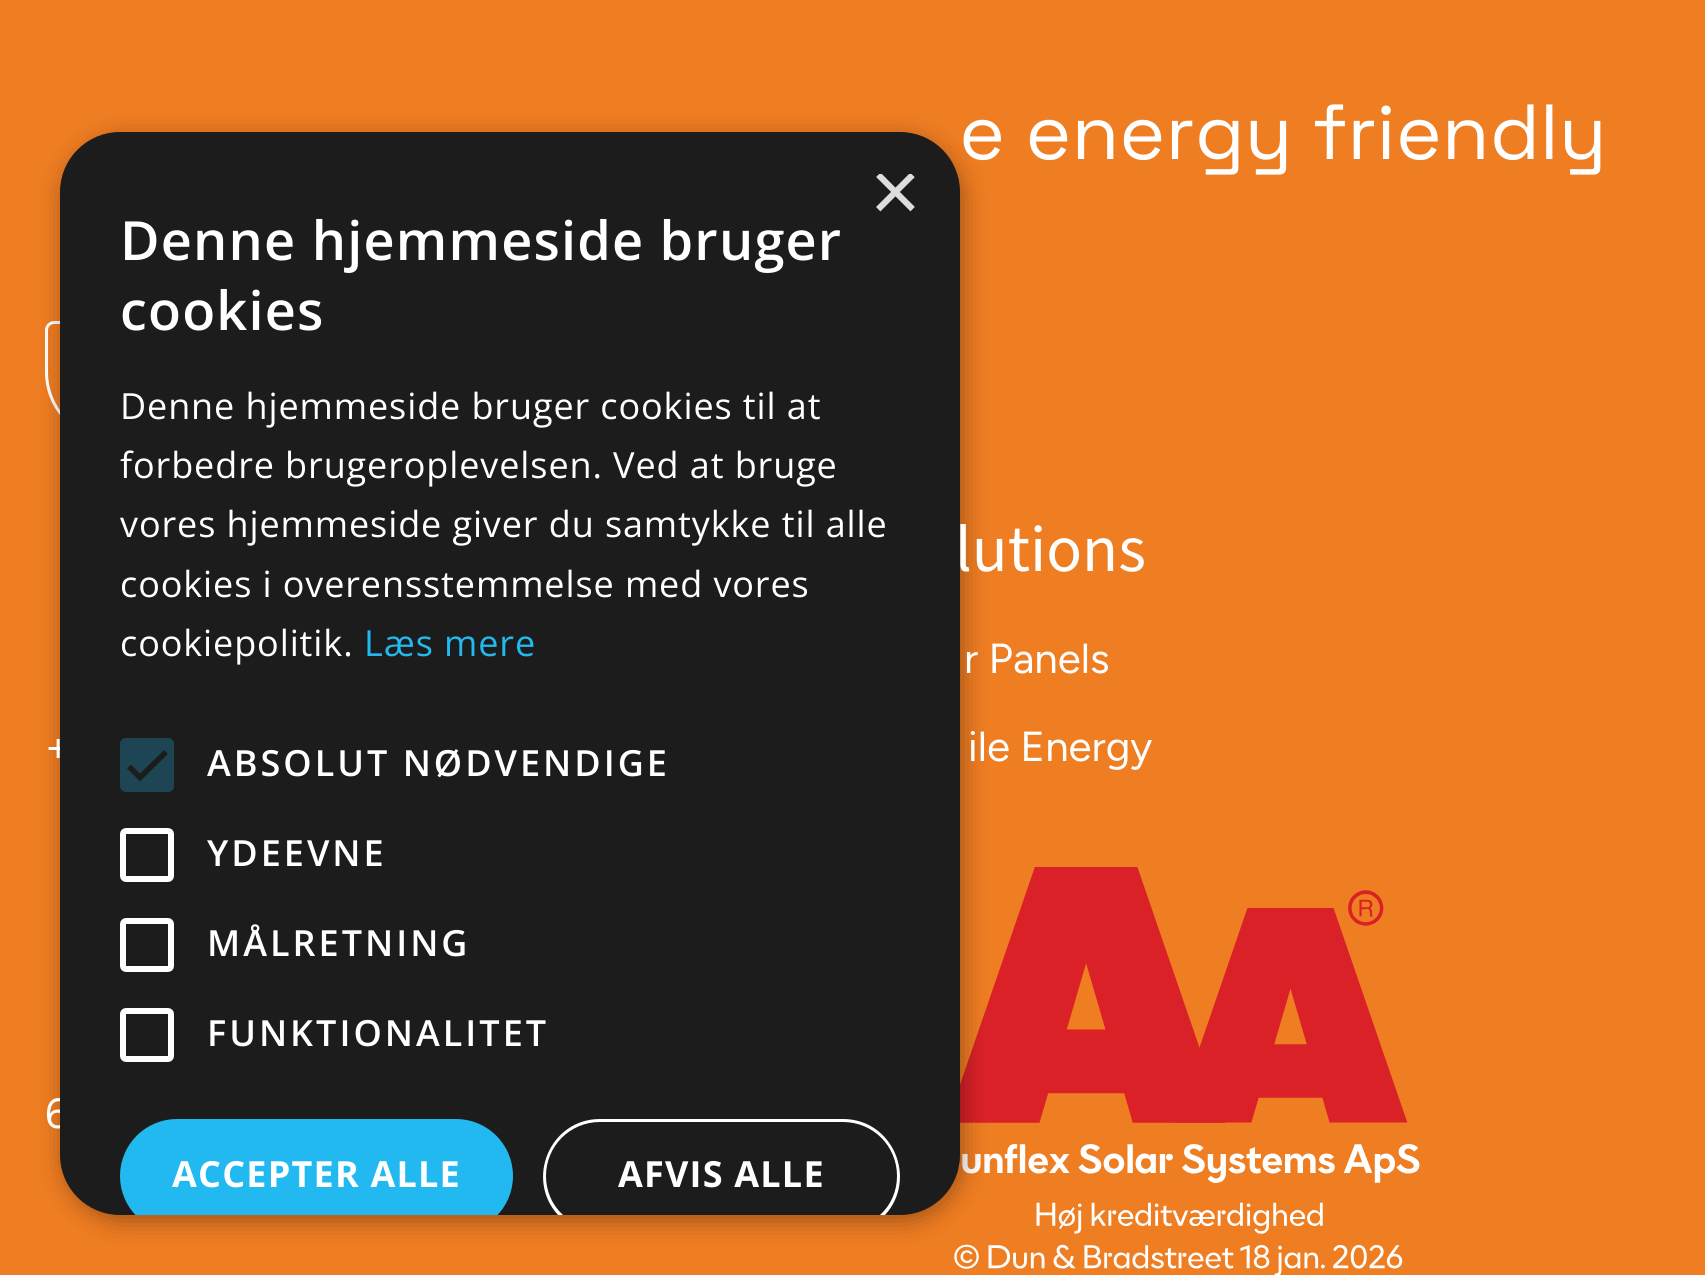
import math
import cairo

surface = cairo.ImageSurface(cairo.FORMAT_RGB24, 1705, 1275)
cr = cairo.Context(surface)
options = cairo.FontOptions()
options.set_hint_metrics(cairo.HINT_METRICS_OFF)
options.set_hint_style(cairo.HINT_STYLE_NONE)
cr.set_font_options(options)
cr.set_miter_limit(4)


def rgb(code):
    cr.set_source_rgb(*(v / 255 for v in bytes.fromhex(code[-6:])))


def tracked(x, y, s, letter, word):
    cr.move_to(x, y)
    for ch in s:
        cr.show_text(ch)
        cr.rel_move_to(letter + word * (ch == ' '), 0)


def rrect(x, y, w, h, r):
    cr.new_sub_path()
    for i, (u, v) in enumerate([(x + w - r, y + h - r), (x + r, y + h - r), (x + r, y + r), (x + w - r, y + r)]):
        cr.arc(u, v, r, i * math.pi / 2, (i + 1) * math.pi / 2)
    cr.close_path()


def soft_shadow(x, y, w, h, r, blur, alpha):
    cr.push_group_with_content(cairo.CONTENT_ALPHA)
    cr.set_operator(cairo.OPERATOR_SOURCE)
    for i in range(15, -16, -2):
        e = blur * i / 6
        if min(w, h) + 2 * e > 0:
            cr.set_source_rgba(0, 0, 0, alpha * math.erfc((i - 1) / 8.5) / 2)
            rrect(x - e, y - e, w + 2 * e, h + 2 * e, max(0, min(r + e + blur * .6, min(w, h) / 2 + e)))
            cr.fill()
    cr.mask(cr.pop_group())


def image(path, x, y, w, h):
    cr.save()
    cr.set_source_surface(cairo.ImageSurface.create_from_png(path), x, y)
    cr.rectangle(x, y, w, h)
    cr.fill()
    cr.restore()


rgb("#ef7d22")
cr.paint()
cr.new_path()
cr.move_to(54, 322.5)
cr.line_to(390, 322.5)
cr.curve_to(394, 322.5, 397.5, 326, 397.5, 330)
cr.line_to(397.5, 432)
cr.curve_to(397.5, 436, 394, 439.5, 390, 439.5)
cr.line_to(114, 439.5)
cr.curve_to(76.5, 439.5, 46.5, 409.5, 46.5, 372)
cr.line_to(46.5, 330)
cr.curve_to(46.5, 326, 50, 322.5, 54, 322.5)
cr.close_path()
rgb("#ffffff")
cr.set_line_width(3)
cr.stroke()
image("img/1.png", 954, 867, 466, 408)
rgb("#000000")
soft_shadow(63, 138, 900, 1083, 60, 12, 0.35)
cr.select_font_face("Space Grotesk Light")
cr.set_font_size(78)
rgb("#ffffff")
cr.move_to(959, 159)
cr.show_text("e energy friendly")
cr.select_font_face("Figtree Light")
cr.set_font_size(42)
cr.move_to(45, 761)
cr.show_text("+")
cr.select_font_face("Source Sans 3 ExtraLight")
cr.set_font_size(66)
cr.move_to(955, 571)
cr.show_text("lutions")
cr.select_font_face("Figtree Light")
cr.set_font_size(42)
for x, y, s in [
    (964, 673, "r Panels"),
    (968, 761, "ile Energy"),
    (45, 1128, "6"),
]:
    cr.move_to(x, y)
    cr.show_text(s)
rgb("#1c1c1c")
rrect(60, 132, 900, 1083, 60)
cr.fill()
cr.save()
cr.rectangle(870, 174, 45, 45)
cr.clip()
cr.select_font_face("Liberation Sans")
cr.set_font_size(87)
rgb("#dddddd")
cr.move_to(870, 221)
cr.show_text("×")
cr.restore()
cr.select_font_face("Open Sans SemiBold")
cr.set_font_size(54)
rgb("#ffffff")
tracked(120, 260, "Denne hjemmeside bruger", 1.2, 0)
tracked(120, 330, "cookies", 1.2, 0)
cr.select_font_face("Open Sans")
cr.set_font_size(36)
for x, y, s in [
    (120, 419, "Denne hjemmeside bruger cookies til at"),
    (120, 478, "forbedre brugeroplevelsen. Ved at bruge"),
    (120, 537, "vores hjemmeside giver du samtykke til alle"),
    (120, 597, "cookies i overensstemmelse med vores"),
    (120, 656, "cookiepolitik."),
]:
    tracked(x, y, s, 0.9, 0)
rgb("#22b8f0")
tracked(364, 656, "Læs mere", 0.9, 0)
rgb("#1e4553")
rrect(120, 738, 54, 54, 6)
cr.fill()
cr.new_path()
cr.move_to(129, 766.5)
cr.line_to(140, 777.5)
cr.line_to(166, 752)
rgb("#1c1c1c")
cr.set_line_width(5.5)
cr.stroke()
cr.select_font_face("Open Sans SemiBold")
rgb("#ffffff")
tracked(207, 776, "ABSOLUT NØDVENDIGE", 3, 0)
rrect(123, 831, 48, 48, 3)
cr.set_line_width(6)
cr.stroke()
tracked(207, 866, "YDEEVNE", 3, 0)
rrect(123, 921, 48, 48, 3)
cr.stroke()
tracked(207, 956, "MÅLRETNING", 3, 0)
rrect(123, 1011, 48, 48, 3)
cr.stroke()
tracked(207, 1046, "FUNKTIONALITET", 3, 0)
cr.save()
rrect(60, 132, 900, 1083, 60)
cr.clip()
rgb("#22b8f0")
rrect(120, 1119, 393, 114, 57)
cr.fill()
cr.restore()
cr.select_font_face("Open Sans", cairo.FONT_SLANT_NORMAL, cairo.FONT_WEIGHT_BOLD)
tracked(172, 1187, "ACCEPTER ALLE", 1.2, 0)
cr.new_path()
cr.move_to(600, 1119)
cr.curve_to(550, 1119, 525, 1179, 558, 1215)
cr.line_to(563, 1215)
cr.curve_to(552, 1205, 546, 1191, 546, 1176)
cr.curve_to(546, 1146, 570, 1122, 600, 1122)
cr.line_to(843, 1122)
cr.curve_to(873, 1122, 897, 1146, 897, 1176)
cr.curve_to(897, 1191, 891, 1205, 880, 1215)
cr.line_to(885, 1215)
cr.curve_to(918, 1179, 893, 1119, 843, 1119)
cr.close_path()
cr.fill()
tracked(618, 1187, "AFVIS ALLE", 1.2, 0)
surface.write_to_png("page.png")
